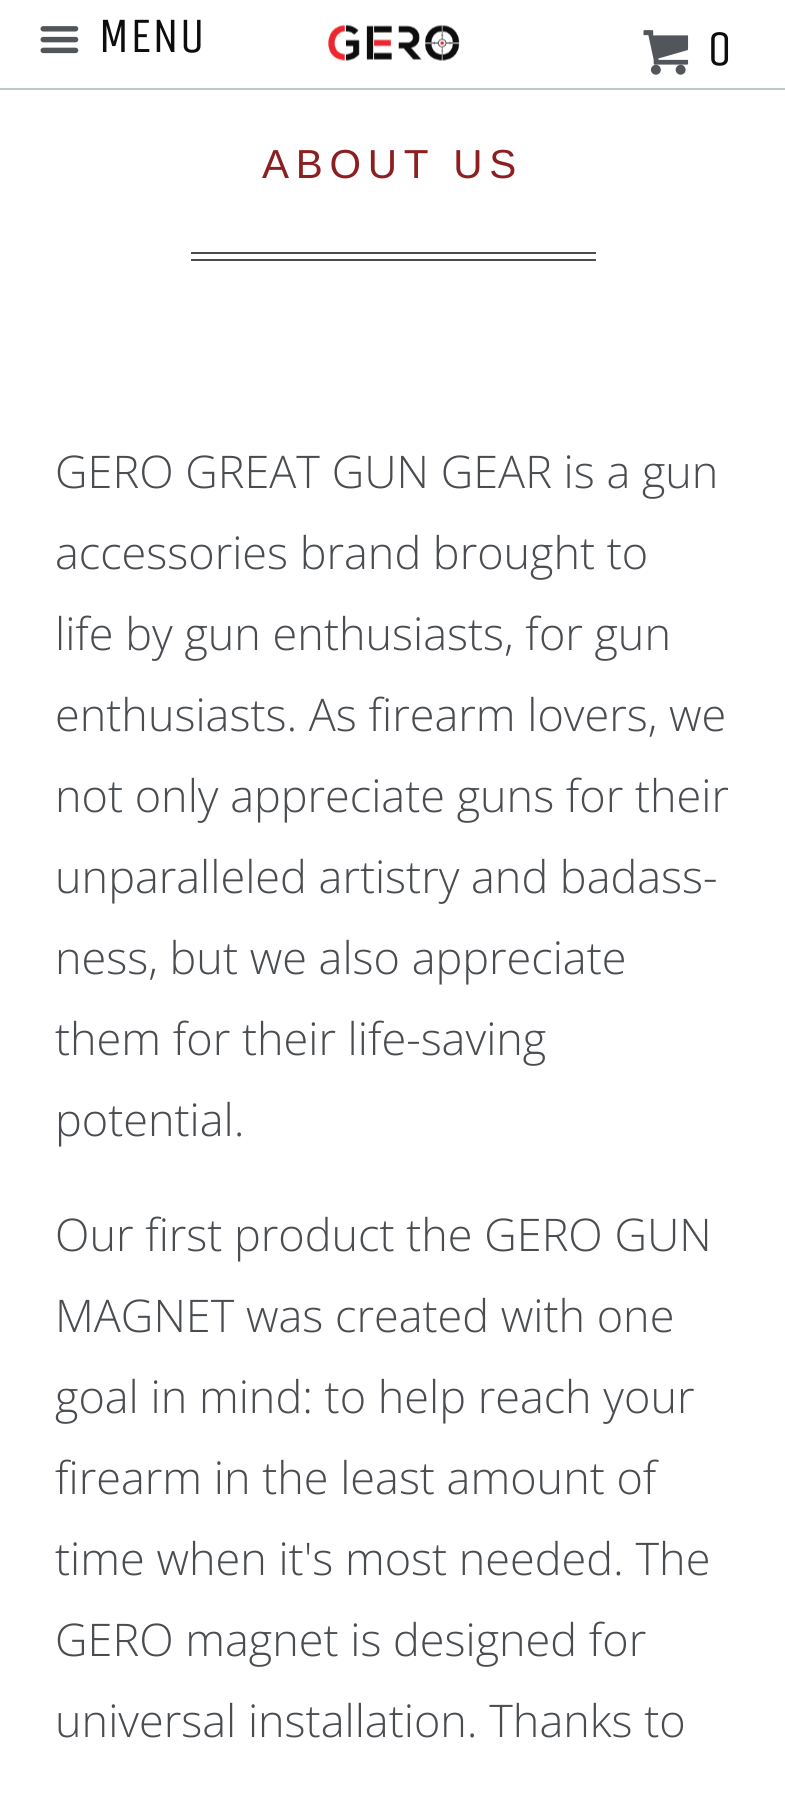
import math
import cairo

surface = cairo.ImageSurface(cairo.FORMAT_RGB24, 785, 1797)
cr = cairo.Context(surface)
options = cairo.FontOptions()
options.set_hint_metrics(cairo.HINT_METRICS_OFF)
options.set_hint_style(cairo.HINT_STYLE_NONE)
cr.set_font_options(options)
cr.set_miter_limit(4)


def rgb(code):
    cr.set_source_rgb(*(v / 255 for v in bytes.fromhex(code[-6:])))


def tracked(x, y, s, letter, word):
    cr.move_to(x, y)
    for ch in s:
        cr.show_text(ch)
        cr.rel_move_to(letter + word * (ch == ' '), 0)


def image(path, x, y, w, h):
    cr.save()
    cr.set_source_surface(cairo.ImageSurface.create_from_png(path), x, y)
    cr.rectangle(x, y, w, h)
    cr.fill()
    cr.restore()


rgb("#ffffff")
cr.paint()
rgb("#bcc9c9")
cr.rectangle(0, 88, 785, 2)
cr.fill()
image("img/1.png", 40, 26, 39, 28)
image("img/2.png", 328, 24, 132, 37)
image("img/3.png", 643, 30, 46, 45)
rgb("#494c50")
cr.rectangle(191, 252, 405, 2)
cr.fill()
cr.rectangle(191, 259, 405, 2)
cr.fill()
cr.select_font_face("Unica One")
cr.set_font_size(49.5)
rgb("#0d0d0d")
cr.move_to(98, 52)
cr.show_text("MENU")
cr.move_to(707, 65)
cr.show_text("0")
cr.select_font_face("Liberation Sans")
cr.set_font_size(40.5)
rgb("#8c1f1f")
tracked(262, 178, "ABOUT US", 6.75, 0)
cr.select_font_face("Open Sans Light")
cr.set_font_size(45)
rgb("#494c50")
for x, y, s in [
    (55, 488, "GERO GREAT GUN GEAR is a gun"),
    (55, 569, "accessories brand brought to"),
    (55, 650, "life by gun enthusiasts, for gun"),
    (55, 731, "enthusiasts. As firearm lovers, we"),
    (55, 812, "not only appreciate guns for their"),
    (55, 893, "unparalleled artistry and badass-"),
    (55, 974, "ness, but we also appreciate"),
    (55, 1055, "them for their life-saving"),
    (55, 1136, "potential."),
    (55, 1251, "Our first product the GERO GUN"),
    (55, 1332, "MAGNET was created with one"),
    (55, 1413, "goal in mind: to help reach your"),
    (55, 1494, "firearm in the least amount of"),
    (55, 1575, "time when it's most needed. The"),
    (55, 1656, "GERO magnet is designed for"),
    (55, 1737, "universal installation. Thanks to"),
]:
    cr.move_to(x, y)
    cr.show_text(s)
surface.write_to_png("page.png")
